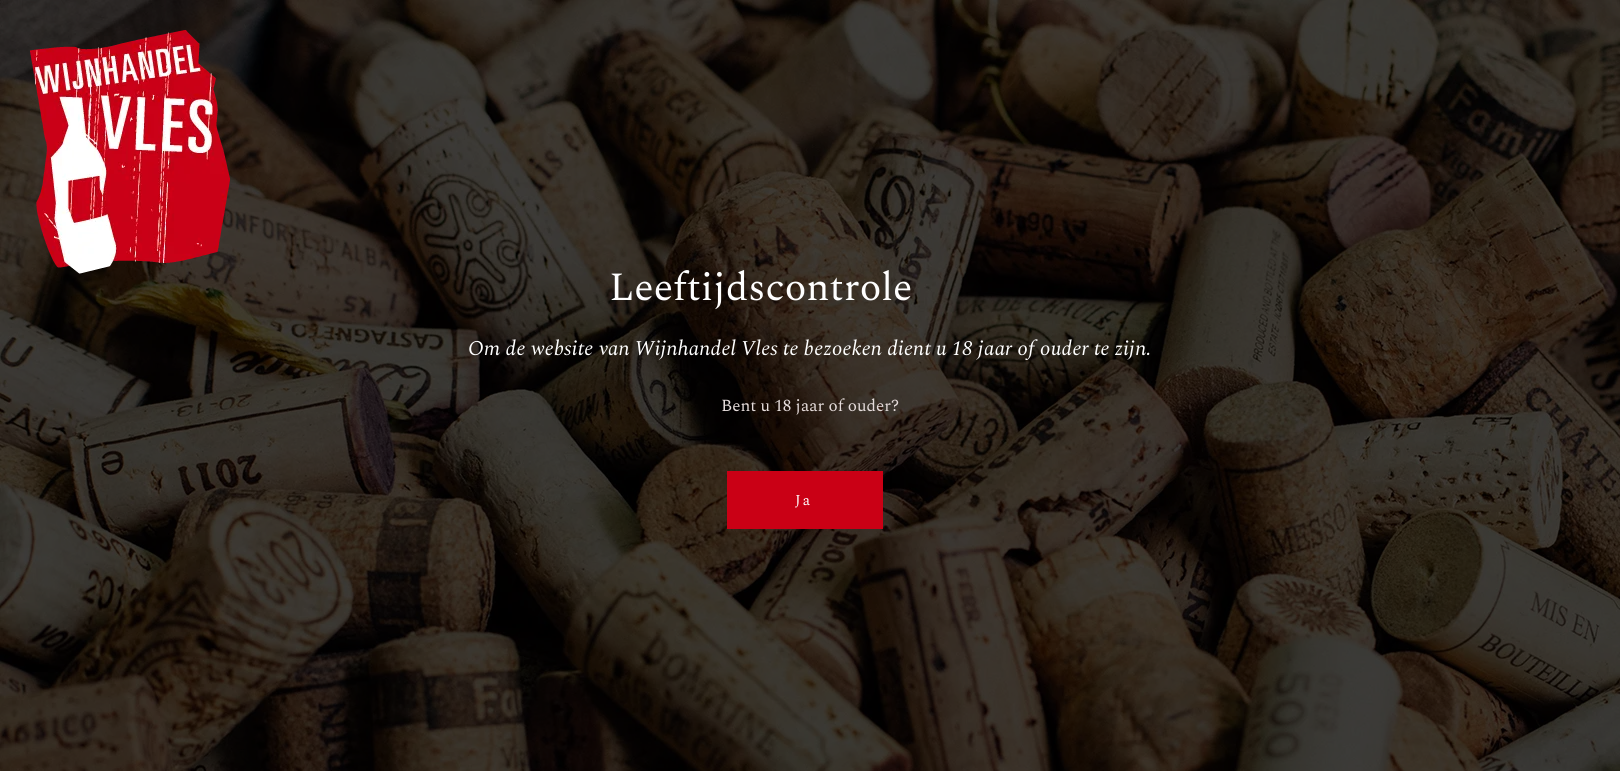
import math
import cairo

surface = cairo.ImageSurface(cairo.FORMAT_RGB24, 1620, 771)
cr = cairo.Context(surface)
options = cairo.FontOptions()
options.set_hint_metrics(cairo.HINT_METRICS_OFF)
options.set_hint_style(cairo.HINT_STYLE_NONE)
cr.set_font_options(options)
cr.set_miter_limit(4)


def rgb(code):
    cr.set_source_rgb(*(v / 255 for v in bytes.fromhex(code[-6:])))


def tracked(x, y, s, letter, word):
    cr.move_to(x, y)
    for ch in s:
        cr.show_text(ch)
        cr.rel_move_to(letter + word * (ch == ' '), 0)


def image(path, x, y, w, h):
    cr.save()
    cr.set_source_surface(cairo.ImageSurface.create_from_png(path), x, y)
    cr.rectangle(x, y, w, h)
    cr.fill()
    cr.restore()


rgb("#ffffff")
cr.paint()
image("img/1.png", 0, 0, 1620, 771)
image("img/2.png", 30, 30, 200, 244)
rgb("#ca0015")
cr.rectangle(727, 471, 156, 58)
cr.fill()
cr.select_font_face("Spectral SC")
cr.set_font_size(40)
rgb("#ffffff")
cr.move_to(609, 300)
cr.show_text("Leeftijdscontrole")
cr.select_font_face("Spectral", cairo.FONT_SLANT_ITALIC)
cr.set_font_size(21)
cr.move_to(468, 355)
cr.show_text("Om de website van Wijnhandel Vles te bezoeken dient u 18 jaar of ouder te zijn.")
cr.select_font_face("Spectral")
cr.set_font_size(17)
rgb("#e5dcdb")
cr.move_to(721, 411)
cr.show_text("Bent u 18 jaar of ouder?")
cr.select_font_face("Spectral SC")
cr.set_font_size(15)
rgb("#ffffff")
tracked(795, 505, "Ja", 2, 0)
surface.write_to_png("page.png")
